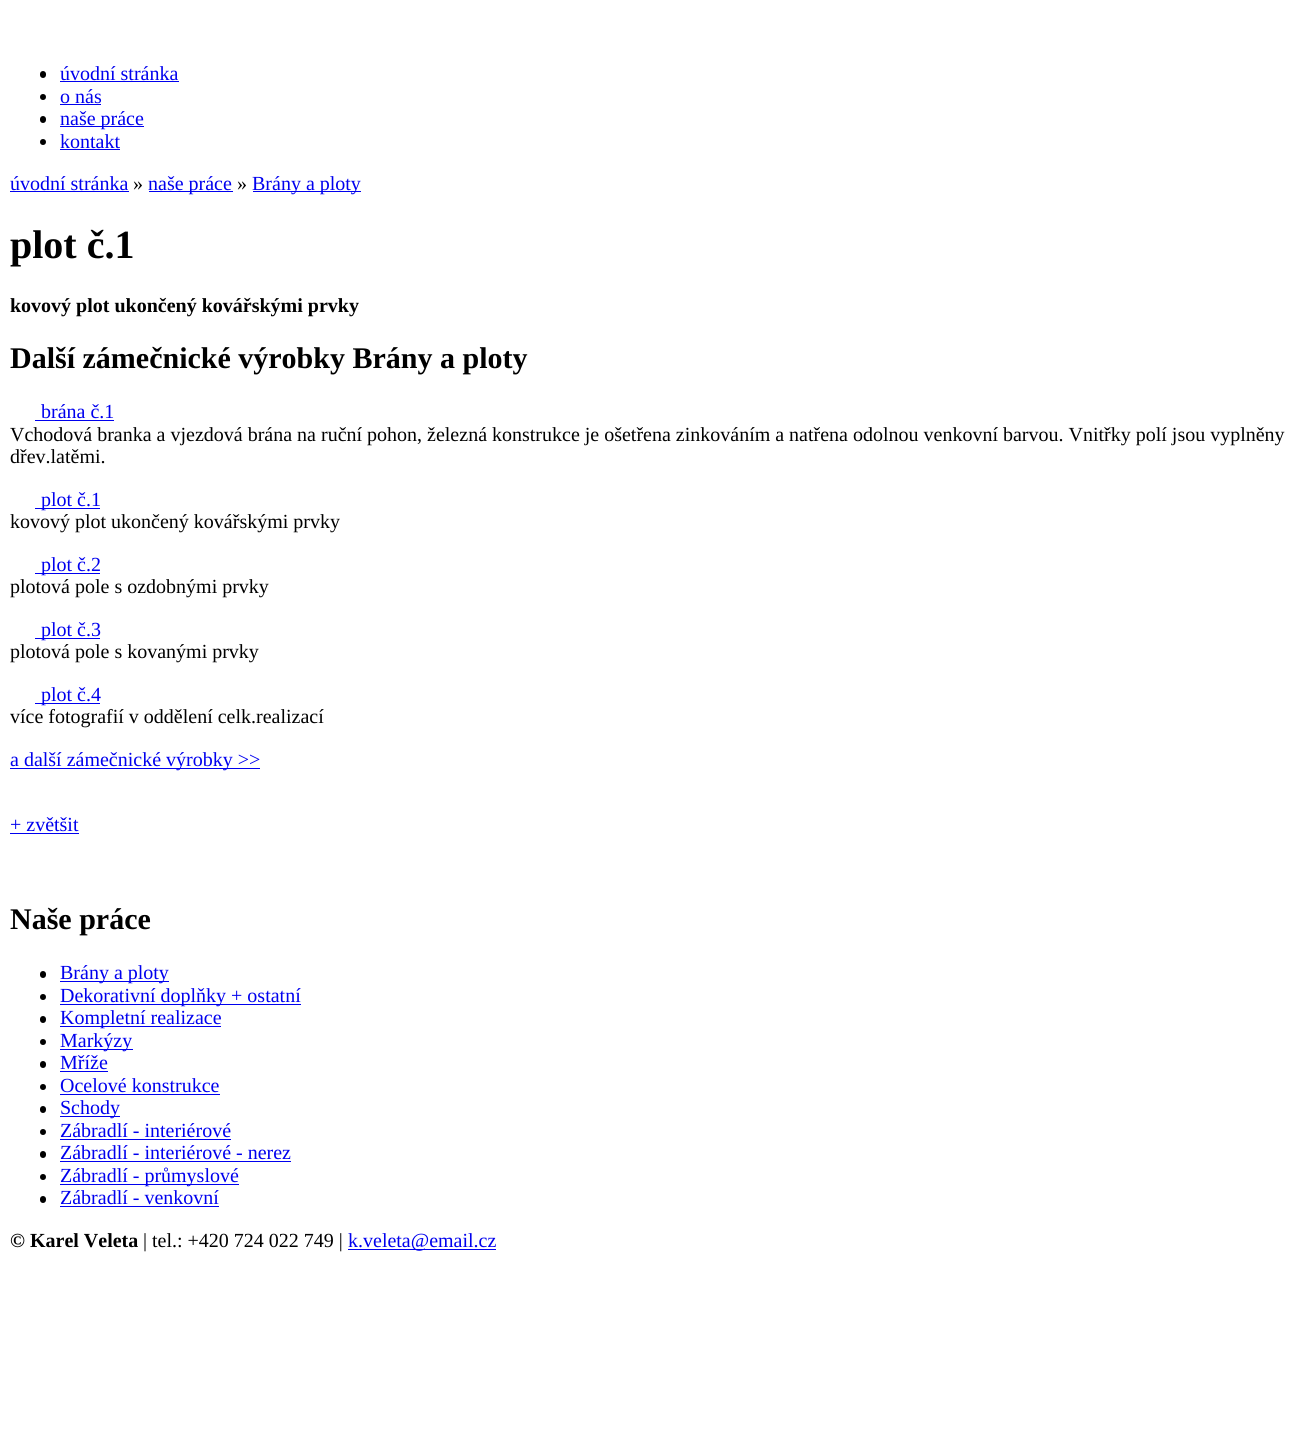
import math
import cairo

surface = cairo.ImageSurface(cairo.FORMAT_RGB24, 1308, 1430)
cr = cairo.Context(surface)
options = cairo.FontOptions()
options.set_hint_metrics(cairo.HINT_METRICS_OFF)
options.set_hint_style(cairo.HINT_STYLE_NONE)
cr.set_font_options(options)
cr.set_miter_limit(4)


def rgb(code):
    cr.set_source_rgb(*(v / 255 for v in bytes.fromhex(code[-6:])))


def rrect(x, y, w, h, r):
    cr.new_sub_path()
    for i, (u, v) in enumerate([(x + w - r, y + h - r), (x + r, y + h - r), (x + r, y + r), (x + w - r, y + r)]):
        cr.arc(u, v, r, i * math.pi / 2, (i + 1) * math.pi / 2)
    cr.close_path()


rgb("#ffffff")
cr.paint()
rgb("#000000")
rrect(40, 71, 6, 7, 3)
cr.fill()
rgb("#0000ee")
cr.rectangle(60, 81, 119, 1)
cr.fill()
rgb("#000000")
cr.arc(43, 97, 3, 0, 2 * math.pi)
cr.fill()
rgb("#0000ee")
cr.rectangle(60, 104, 41, 1)
cr.fill()
rgb("#000000")
rrect(40, 116, 6, 7, 3)
cr.fill()
rgb("#0000ee")
cr.rectangle(60, 126, 84, 1)
cr.fill()
rgb("#000000")
cr.arc(43, 142, 3, 0, 2 * math.pi)
cr.fill()
for x, y, w, h, color in [
    (60, 149, 60, 1, "#0000ee"),
    (10, 191, 119, 1, "#0000ee"),
    (149, 191, 84, 1, "#0000ee"),
    (253, 191, 108, 1, "#0000ee"),
    (35, 420, 79, 1, "#0000ee"),
    (35, 508, 65, 1, "#0000ee"),
    (35, 573, 65, 1, "#0000ee"),
    (35, 638, 65, 1, "#0000ee"),
    (35, 703, 65, 1, "#0000ee"),
    (10, 768, 250, 1, "#0000ee"),
    (10, 833, 69, 1, "#0000ee"),
]:
    rgb(color)
    cr.rectangle(x, y, w, h)
    cr.fill()
rgb("#000000")
rrect(40, 971, 6, 7, 3)
cr.fill()
rgb("#0000ee")
cr.rectangle(60, 981, 109, 1)
cr.fill()
rgb("#000000")
cr.arc(43, 997, 3, 0, 2 * math.pi)
cr.fill()
rgb("#0000ee")
cr.rectangle(60, 1004, 241, 1)
cr.fill()
rgb("#000000")
rrect(40, 1016, 6, 7, 3)
cr.fill()
rgb("#0000ee")
cr.rectangle(60, 1026, 161, 1)
cr.fill()
rgb("#000000")
cr.arc(43, 1042, 3, 0, 2 * math.pi)
cr.fill()
rgb("#0000ee")
cr.rectangle(60, 1049, 73, 1)
cr.fill()
rgb("#000000")
rrect(40, 1061, 6, 7, 3)
cr.fill()
rgb("#0000ee")
cr.rectangle(60, 1071, 48, 1)
cr.fill()
rgb("#000000")
cr.arc(43, 1087, 3, 0, 2 * math.pi)
cr.fill()
rgb("#0000ee")
cr.rectangle(60, 1094, 160, 1)
cr.fill()
rgb("#000000")
rrect(40, 1106, 6, 7, 3)
cr.fill()
rgb("#0000ee")
cr.rectangle(60, 1116, 60, 1)
cr.fill()
rgb("#000000")
cr.arc(43, 1132, 3, 0, 2 * math.pi)
cr.fill()
rgb("#0000ee")
cr.rectangle(60, 1139, 171, 1)
cr.fill()
rgb("#000000")
rrect(40, 1151, 6, 7, 3)
cr.fill()
rgb("#0000ee")
cr.rectangle(60, 1161, 231, 1)
cr.fill()
rgb("#000000")
cr.arc(43, 1177, 3, 0, 2 * math.pi)
cr.fill()
rgb("#0000ee")
cr.rectangle(60, 1184, 179, 1)
cr.fill()
rgb("#000000")
rrect(40, 1196, 6, 7, 3)
cr.fill()
rgb("#0000ee")
cr.rectangle(60, 1206, 159, 1)
cr.fill()
cr.rectangle(348, 1249, 148, 1)
cr.fill()
cr.select_font_face("Liberation Serif")
cr.set_font_size(20)
for x, y, s in [
    (60, 80, "úvodní stránka"),
    (60, 103, "o nás"),
    (60, 125, "naše práce"),
    (60, 148, "kontakt"),
    (10, 190, "úvodní stránka"),
]:
    cr.move_to(x, y)
    cr.show_text(s)
rgb("#000000")
cr.move_to(133, 190)
cr.show_text("»")
rgb("#0000ee")
cr.move_to(148, 190)
cr.show_text("naše práce")
rgb("#000000")
cr.move_to(237, 190)
cr.show_text("»")
rgb("#0000ee")
cr.move_to(252, 190)
cr.show_text("Brány a ploty")
cr.select_font_face("Liberation Serif", cairo.FONT_SLANT_NORMAL, cairo.FONT_WEIGHT_BOLD)
cr.set_font_size(40)
rgb("#000000")
cr.move_to(10, 258)
cr.show_text("plot č.1")
cr.set_font_size(20)
cr.move_to(10, 312)
cr.show_text("kovový plot ukončený kovářskými prvky")
cr.set_font_size(30)
cr.move_to(10, 368)
cr.show_text("Další zámečnické výrobky Brány a ploty")
cr.select_font_face("Liberation Serif")
cr.set_font_size(20)
rgb("#0000ee")
cr.move_to(41, 418)
cr.show_text("brána č.1")
rgb("#000000")
cr.move_to(10, 441)
cr.show_text("Vchodová branka a vjezdová brána na ruční pohon, železná konstrukce je ošetřena zinkováním a natřena odolnou venkovní barvou. Vnitřky polí jsou vyplněny")
cr.move_to(10, 463)
cr.show_text("dřev.latěmi.")
rgb("#0000ee")
cr.move_to(41, 506)
cr.show_text("plot č.1")
rgb("#000000")
cr.move_to(10, 528)
cr.show_text("kovový plot ukončený kovářskými prvky")
rgb("#0000ee")
cr.move_to(41, 571)
cr.show_text("plot č.2")
rgb("#000000")
cr.move_to(10, 593)
cr.show_text("plotová pole s ozdobnými prvky")
rgb("#0000ee")
cr.move_to(41, 636)
cr.show_text("plot č.3")
rgb("#000000")
cr.move_to(10, 658)
cr.show_text("plotová pole s kovanými prvky")
rgb("#0000ee")
cr.move_to(41, 701)
cr.show_text("plot č.4")
rgb("#000000")
cr.move_to(10, 723)
cr.show_text("více fotografií v oddělení celk.realizací")
rgb("#0000ee")
cr.move_to(10, 766)
cr.show_text("a další zámečnické výrobky >>")
cr.move_to(10, 831)
cr.show_text("+ zvětšit")
cr.select_font_face("Liberation Serif", cairo.FONT_SLANT_NORMAL, cairo.FONT_WEIGHT_BOLD)
cr.set_font_size(30)
rgb("#000000")
cr.move_to(10, 929)
cr.show_text("Naše práce")
cr.select_font_face("Liberation Serif")
cr.set_font_size(20)
rgb("#0000ee")
for x, y, s in [
    (60, 979, "Brány a ploty"),
    (60, 1002, "Dekorativní doplňky + ostatní"),
    (60, 1024, "Kompletní realizace"),
    (60, 1047, "Markýzy"),
    (60, 1069, "Mříže"),
    (60, 1092, "Ocelové konstrukce"),
    (60, 1114, "Schody"),
    (60, 1137, "Zábradlí - interiérové"),
    (60, 1159, "Zábradlí - interiérové - nerez"),
    (60, 1182, "Zábradlí - průmyslové"),
    (60, 1204, "Zábradlí - venkovní"),
]:
    cr.move_to(x, y)
    cr.show_text(s)
cr.select_font_face("Liberation Serif", cairo.FONT_SLANT_NORMAL, cairo.FONT_WEIGHT_BOLD)
rgb("#000000")
cr.move_to(10, 1247)
cr.show_text("© Karel Veleta")
cr.select_font_face("Liberation Serif")
cr.move_to(143, 1247)
cr.show_text("| tel.: +420 724 022 749 |")
rgb("#0000ee")
cr.move_to(348, 1247)
cr.show_text("k.veleta@email.cz")
surface.write_to_png("page.png")
